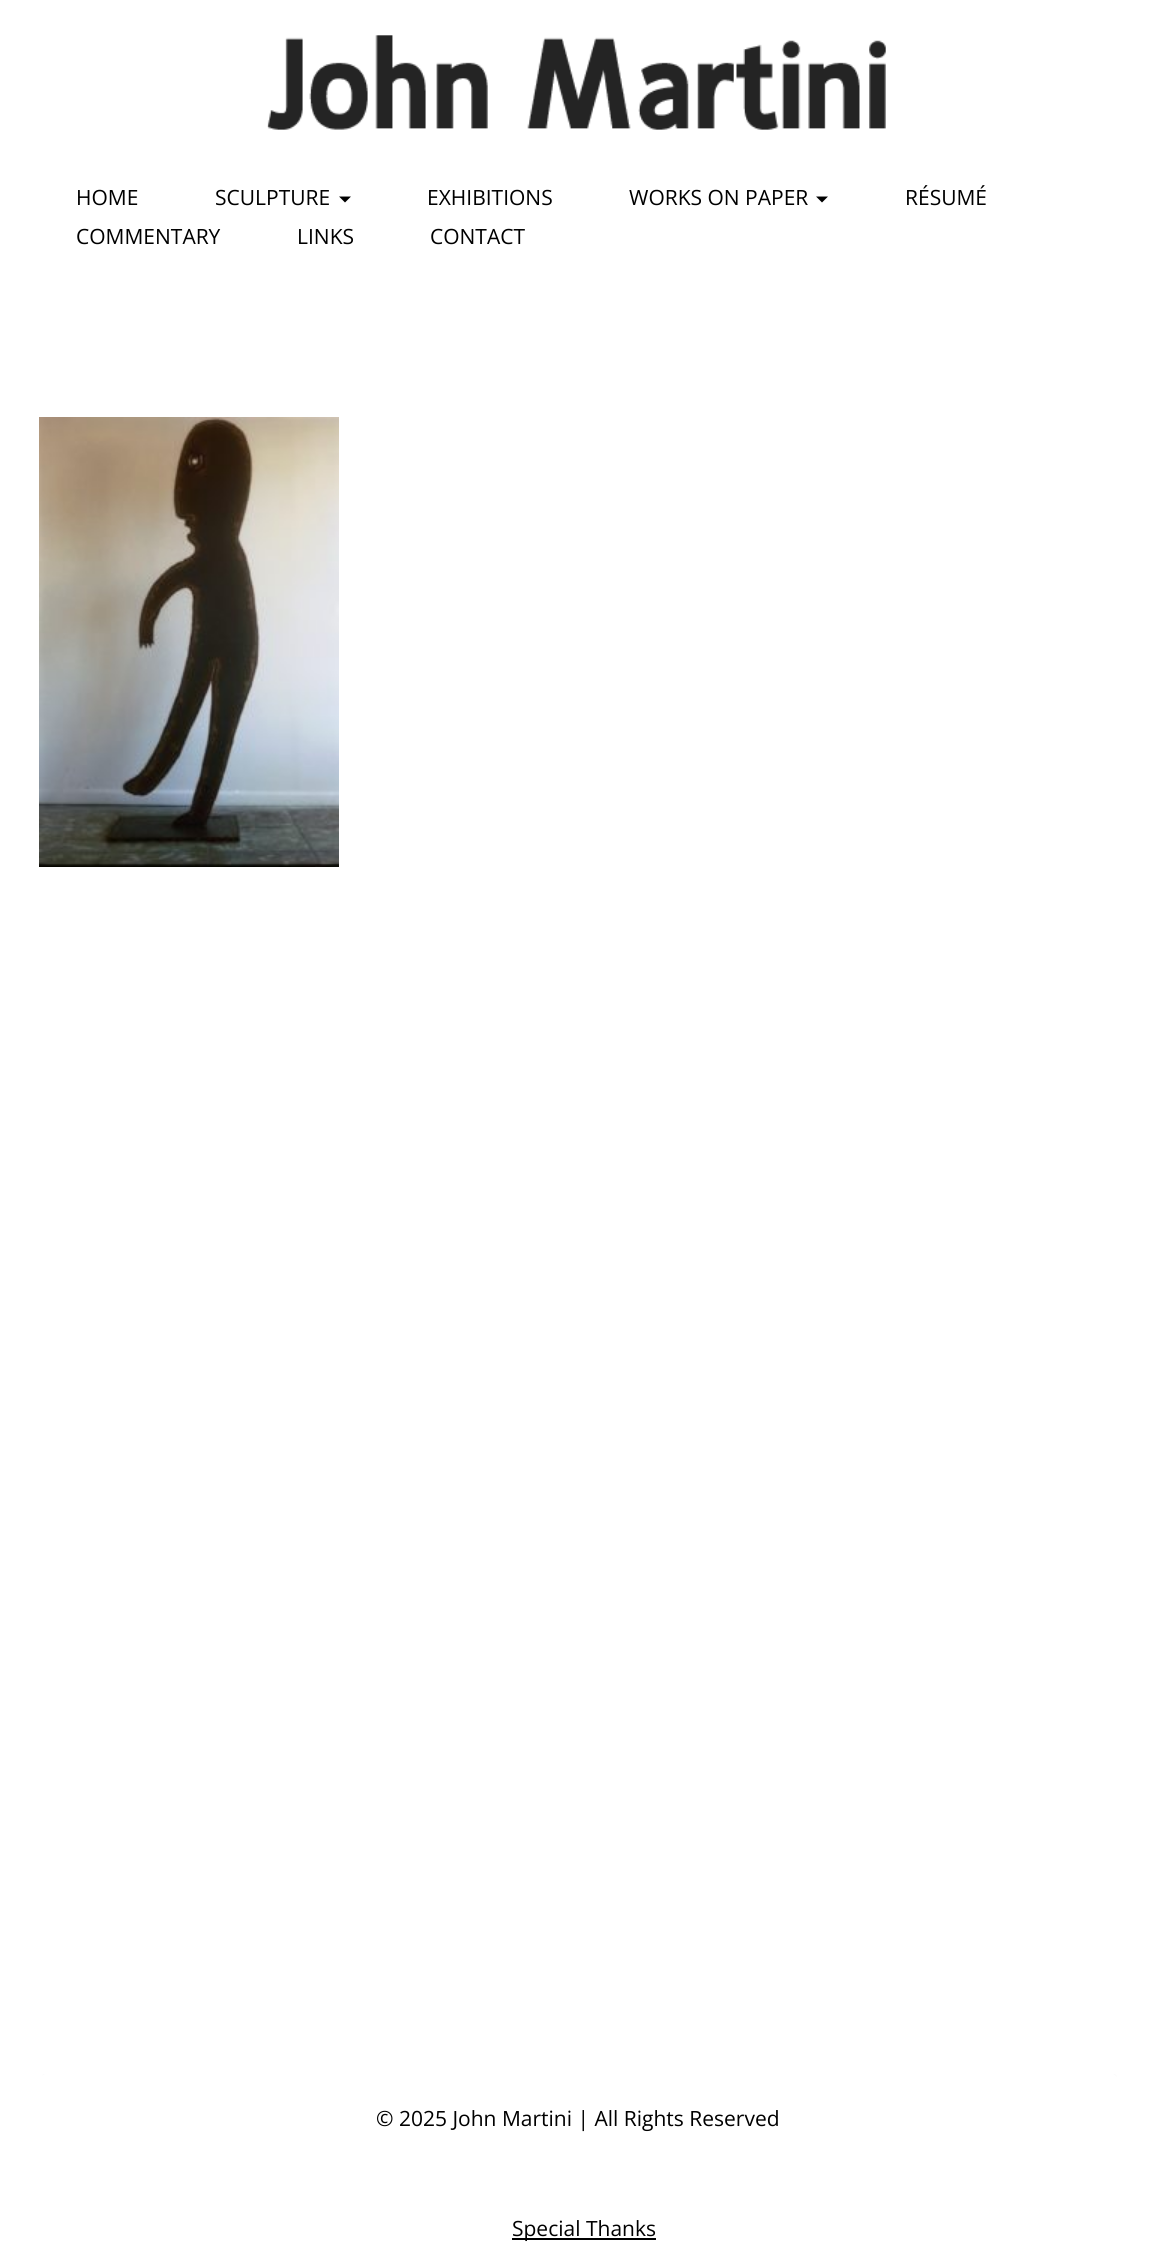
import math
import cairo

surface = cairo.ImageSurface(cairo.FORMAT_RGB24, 1156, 2267)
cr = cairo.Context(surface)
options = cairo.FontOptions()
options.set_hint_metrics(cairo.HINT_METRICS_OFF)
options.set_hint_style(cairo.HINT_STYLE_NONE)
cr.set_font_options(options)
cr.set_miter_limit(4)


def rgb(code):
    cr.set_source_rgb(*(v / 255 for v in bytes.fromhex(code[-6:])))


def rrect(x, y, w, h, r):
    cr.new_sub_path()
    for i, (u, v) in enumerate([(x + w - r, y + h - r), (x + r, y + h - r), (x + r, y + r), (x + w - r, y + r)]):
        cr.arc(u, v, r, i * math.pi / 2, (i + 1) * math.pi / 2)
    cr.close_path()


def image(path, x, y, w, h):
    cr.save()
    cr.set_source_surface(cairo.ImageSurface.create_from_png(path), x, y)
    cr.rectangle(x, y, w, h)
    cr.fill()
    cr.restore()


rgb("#ffffff")
cr.paint()
image("img/1.png", 267, 35, 619, 95)
rgb("#000000")
cr.new_path()
cr.move_to(339, 196.5)
cr.line_to(351, 196.5)
cr.line_to(345, 202.5)
cr.close_path()
cr.fill()
cr.new_path()
cr.move_to(816, 196.5)
cr.line_to(828, 196.5)
cr.line_to(822, 202.5)
cr.close_path()
cr.fill()
image("img/2.png", 39, 417, 300, 450)
rgb("#f2f2f2")
cr.new_path()
cr.move_to(45, 2074)
cr.line_to(1113, 2074)
cr.curve_to(1115, 2074, 1118, 2077, 1118, 2079)
cr.line_to(1118, 2078)
cr.curve_to(1118, 2075, 1116, 2073, 1113, 2073)
cr.line_to(46, 2073)
cr.curve_to(44, 2073, 42, 2074, 41, 2076)
cr.curve_to(42, 2075, 44, 2074, 45, 2074)
cr.close_path()
cr.fill()
rrect(40, 2073, 1078, 107, 5)
rgb("#ffffff")
cr.stroke()
rgb("#000000")
cr.rectangle(512, 2238, 144, 2)
cr.fill()
cr.select_font_face("Open Sans")
cr.set_font_size(21)
for x, y, s in [
    (76, 205, "HOME"),
    (215, 205, "SCULPTURE"),
    (427, 205, "EXHIBITIONS"),
    (629, 205, "WORKS ON PAPER"),
    (905, 205, "RÉSUMÉ"),
    (76, 244, "COMMENTARY"),
    (297, 244, "LINKS"),
    (430, 244, "CONTACT"),
    (376, 2126, "© 2025 John Martini | All Rights Reserved"),
    (512, 2236, "Special Thanks"),
]:
    cr.move_to(x, y)
    cr.show_text(s)
surface.write_to_png("page.png")
